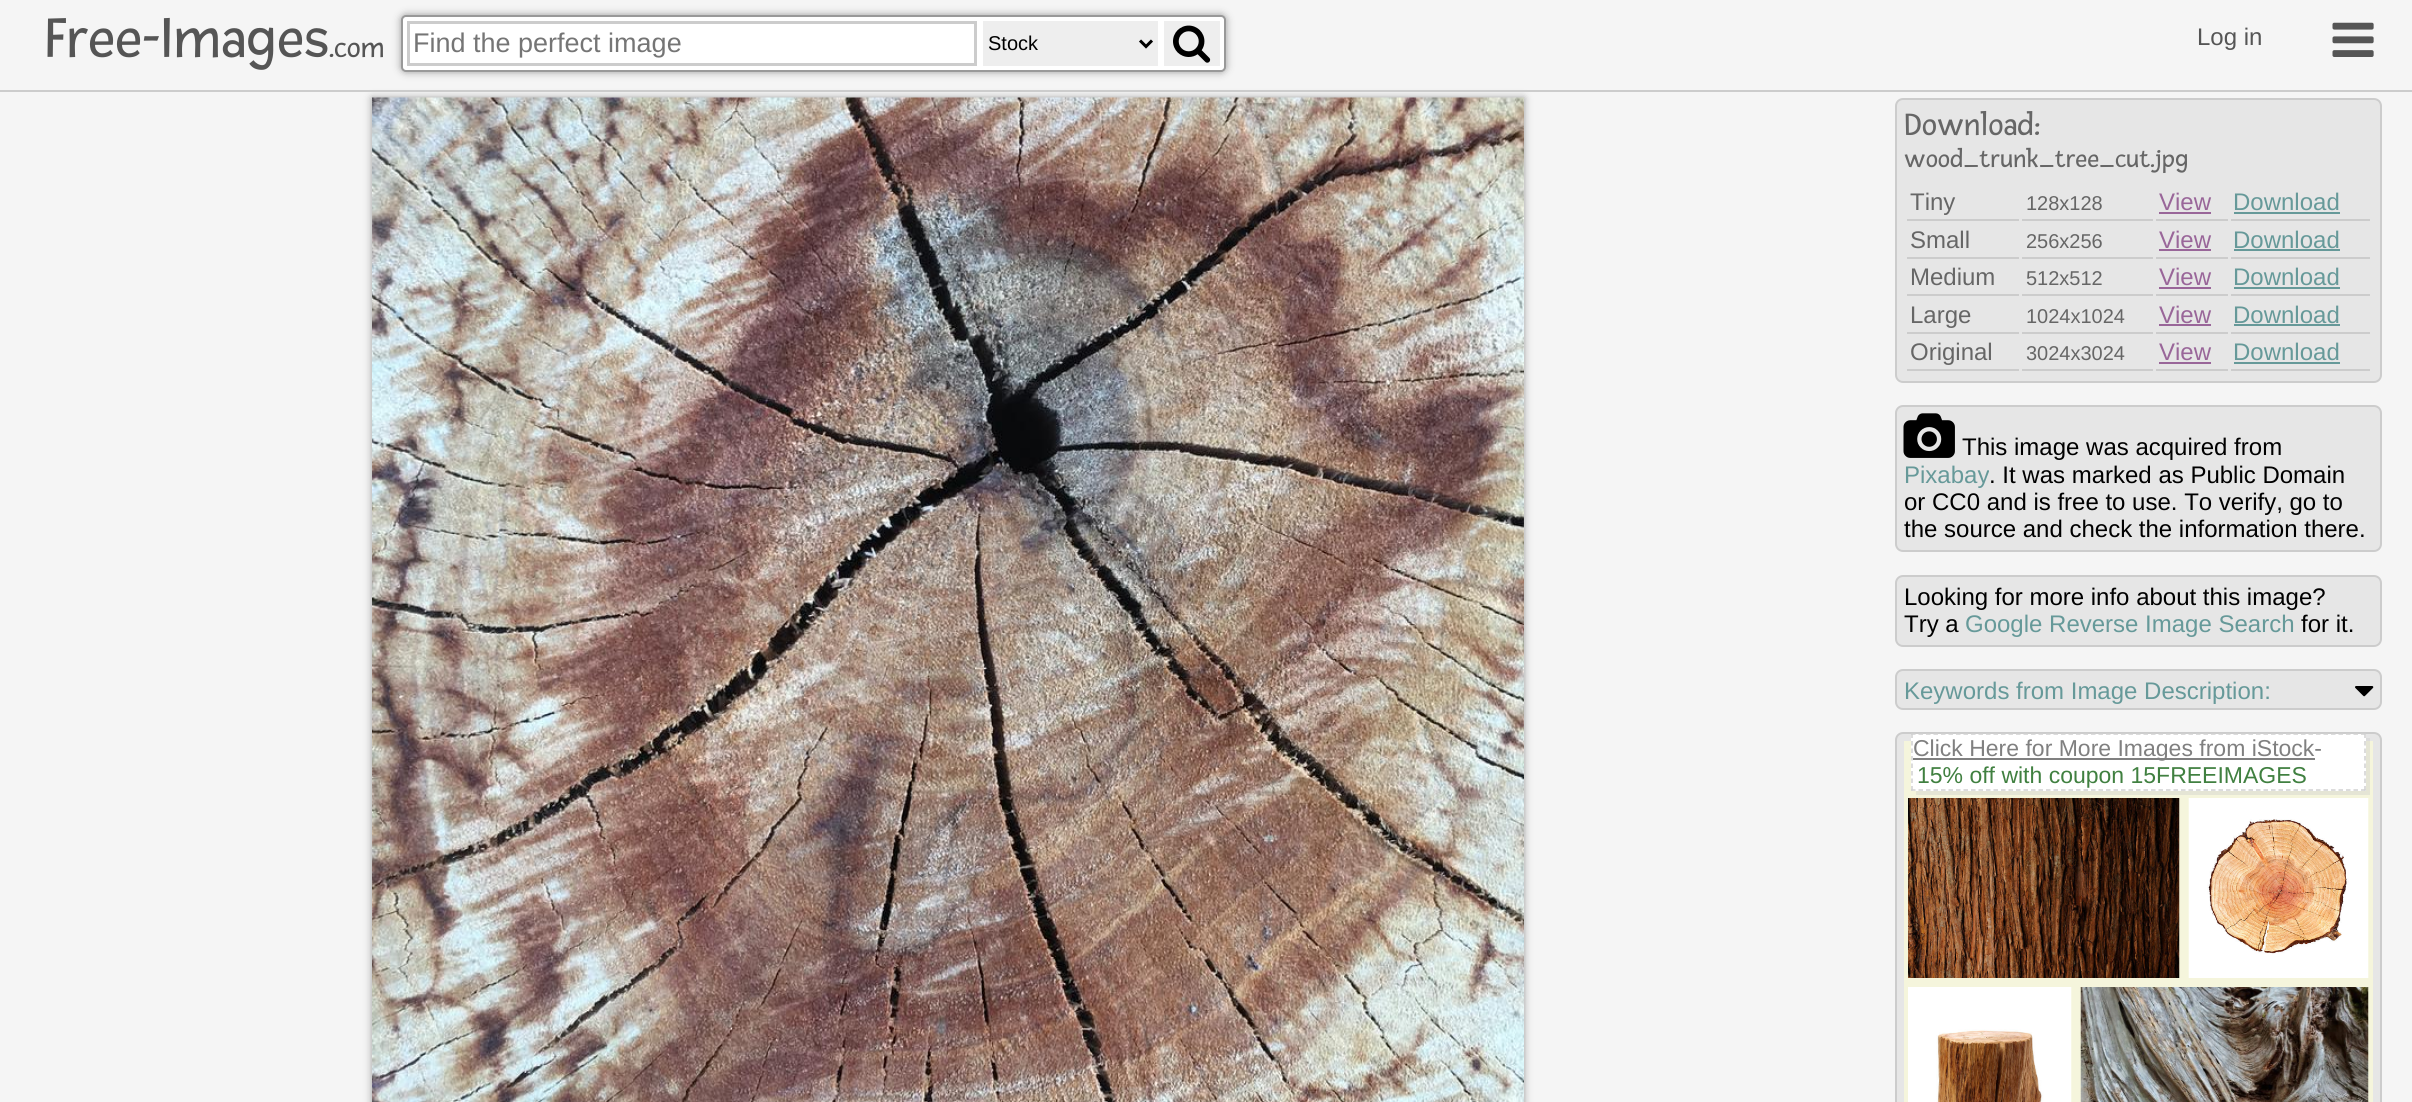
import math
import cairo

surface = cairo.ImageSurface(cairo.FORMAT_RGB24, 2412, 1102)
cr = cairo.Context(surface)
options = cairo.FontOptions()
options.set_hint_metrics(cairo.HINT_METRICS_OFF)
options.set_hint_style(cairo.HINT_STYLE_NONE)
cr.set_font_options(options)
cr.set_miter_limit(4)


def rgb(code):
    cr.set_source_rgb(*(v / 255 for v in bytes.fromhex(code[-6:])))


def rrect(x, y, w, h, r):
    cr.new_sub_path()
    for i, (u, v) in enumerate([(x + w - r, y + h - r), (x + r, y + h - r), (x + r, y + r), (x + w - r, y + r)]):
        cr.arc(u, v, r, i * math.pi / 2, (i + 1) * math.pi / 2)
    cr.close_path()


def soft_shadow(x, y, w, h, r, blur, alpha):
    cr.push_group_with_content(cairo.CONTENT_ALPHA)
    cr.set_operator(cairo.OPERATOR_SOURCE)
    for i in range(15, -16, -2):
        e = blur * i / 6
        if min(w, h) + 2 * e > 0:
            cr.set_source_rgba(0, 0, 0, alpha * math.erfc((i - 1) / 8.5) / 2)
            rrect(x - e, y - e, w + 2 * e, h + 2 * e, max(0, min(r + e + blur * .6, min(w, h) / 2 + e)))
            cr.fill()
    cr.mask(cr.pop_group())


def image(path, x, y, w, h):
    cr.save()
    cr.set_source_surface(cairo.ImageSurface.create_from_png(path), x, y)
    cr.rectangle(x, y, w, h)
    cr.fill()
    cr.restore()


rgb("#f5f5f5")
cr.paint()
rgb("#999999")
soft_shadow(372, 98, 1152, 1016, 0, 4, 1)
rgb("#cccccc")
cr.rectangle(0, 90, 2412, 2)
cr.fill()
rgb("#999999")
soft_shadow(401, 15, 825, 57, 5, 4, 1)
rgb("#ffffff")
rrect(402, 16, 823, 55, 4)
cr.fill_preserve()
rgb("#999999")
cr.stroke()
cr.rectangle(408.5, 22.5, 567, 42)
rgb("#cccccc")
cr.set_line_width(3)
cr.stroke()
rgb("#eeeeee")
cr.rectangle(983, 21, 175, 45)
cr.fill()
cr.new_path()
cr.move_to(1140, 40.5)
cr.line_to(1146, 46.5)
cr.line_to(1152, 40.5)
rgb("#000000")
cr.stroke()
rgb("#eeeeee")
cr.rectangle(1164, 21, 56, 45)
cr.fill()
image("img/1.png", 1173, 25, 38, 38)
image("img/2.png", 2332, 22, 42, 35)
image("img/3.png", 372, 97, 1152, 1005)
rgb("#e6e6e6")
rrect(1896, 99, 485, 283, 7)
cr.fill_preserve()
rgb("#cccccc")
cr.set_line_width(2)
cr.stroke()
for x, y, w, h, color in [
    (1907, 219, 112, 2, "#cccccc"),
    (2022, 219, 131, 2, "#cccccc"),
    (2156, 219, 72, 2, "#cccccc"),
    (2159, 212, 52, 2, "#996699"),
    (2231, 219, 139, 2, "#cccccc"),
    (2234, 212, 106, 2, "#669999"),
    (1907, 257, 112, 2, "#cccccc"),
    (2022, 257, 131, 2, "#cccccc"),
    (2156, 257, 72, 2, "#cccccc"),
    (2159, 249, 52, 2, "#996699"),
    (2231, 257, 139, 2, "#cccccc"),
    (2234, 249, 106, 2, "#669999"),
    (1907, 294, 112, 2, "#cccccc"),
    (2022, 294, 131, 2, "#cccccc"),
    (2156, 294, 72, 2, "#cccccc"),
    (2159, 287, 52, 2, "#996699"),
    (2231, 294, 139, 2, "#cccccc"),
    (2234, 287, 106, 2, "#669999"),
    (1907, 332, 112, 2, "#cccccc"),
    (2022, 332, 131, 2, "#cccccc"),
    (2156, 332, 72, 2, "#cccccc"),
    (2159, 324, 52, 2, "#996699"),
    (2231, 332, 139, 2, "#cccccc"),
    (2234, 324, 106, 2, "#669999"),
    (1907, 369, 112, 2, "#cccccc"),
    (2022, 369, 131, 2, "#cccccc"),
    (2156, 369, 72, 2, "#cccccc"),
    (2159, 362, 52, 2, "#996699"),
    (2231, 369, 139, 2, "#cccccc"),
    (2234, 362, 106, 2, "#669999"),
]:
    rgb(color)
    cr.rectangle(x, y, w, h)
    cr.fill()
rgb("#e6e6e6")
rrect(1896, 406, 485, 145, 7)
cr.fill_preserve()
rgb("#cccccc")
cr.stroke()
image("img/4.png", 1903, 413, 52, 45)
rgb("#e6e6e6")
rrect(1896, 576, 485, 70, 7)
cr.fill_preserve()
rgb("#cccccc")
cr.stroke()
rgb("#e6e6e6")
rrect(1896, 670, 485, 39, 7)
cr.fill_preserve()
rgb("#cccccc")
cr.stroke()
image("img/5.png", 2355, 686, 19, 11)
rgb("#e6e6e6")
rrect(1896, 733, 485, 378, 7)
cr.fill_preserve()
rgb("#cccccc")
cr.stroke()
rgb("#f5f5dc")
cr.rectangle(1904, 741, 469, 361)
cr.fill()
cr.set_source_rgba(0.8, 0.8, 0.8, 0.38)
cr.new_path()
cr.move_to(1916, 790)
cr.line_to(1916, 795)
cr.line_to(2370, 795)
cr.line_to(2370, 738)
cr.line_to(2366, 738)
cr.line_to(2366, 790)
cr.close_path()
cr.fill()
rgb("#ffffff")
cr.rectangle(1911, 734, 455, 57)
cr.fill()
cr.new_path()
cr.move_to(1911, 734)
cr.line_to(2365.5, 734)
rgb("#d0d0d0")
cr.set_line_width(1.5)
cr.set_dash([4.5, 3])
cr.stroke()
cr.new_path()
cr.move_to(2365, 733.5)
cr.line_to(2365, 790.5)
cr.stroke()
cr.new_path()
cr.move_to(1911, 790)
cr.line_to(2365.5, 790)
cr.stroke()
cr.new_path()
cr.move_to(1912, 733.5)
cr.line_to(1912, 790.5)
cr.stroke()
rgb("#808080")
cr.rectangle(1913, 758, 402, 2)
cr.fill()
image("img/6.png", 1908, 798, 272, 180)
image("img/7.png", 2188, 798, 181, 180)
image("img/8.png", 1908, 987, 164, 115)
image("img/9.png", 2080, 987, 289, 115)
cr.select_font_face("Fresca")
cr.set_font_size(60)
rgb("#555555")
cr.move_to(45, 57)
cr.show_text("Free-Images")
cr.set_font_size(30)
cr.move_to(329, 57)
cr.show_text(".com")
cr.select_font_face("Liberation Sans")
cr.set_font_size(27)
rgb("#757575")
cr.move_to(413, 52)
cr.show_text("Find the perfect image")
cr.set_font_size(20)
rgb("#000000")
cr.move_to(988, 50)
cr.show_text("Stock")
cr.set_font_size(24)
rgb("#555555")
cr.move_to(2197, 45)
cr.show_text("Log in")
cr.select_font_face("Fresca")
cr.set_font_size(33)
rgb("#666666")
cr.move_to(1904, 135)
cr.show_text("Download:")
cr.set_font_size(26.4)
cr.move_to(1904, 167)
cr.show_text("wood_trunk_tree_cut.jpg")
cr.select_font_face("Liberation Sans")
cr.set_font_size(24)
cr.move_to(1910, 210)
cr.show_text("Tiny")
cr.set_font_size(20)
cr.move_to(2026, 210)
cr.show_text("128x128")
cr.set_font_size(24)
rgb("#996699")
cr.move_to(2159, 210)
cr.show_text("View")
rgb("#669999")
cr.move_to(2233, 210)
cr.show_text("Download")
rgb("#666666")
cr.move_to(1910, 248)
cr.show_text("Small")
cr.set_font_size(20)
cr.move_to(2026, 248)
cr.show_text("256x256")
cr.set_font_size(24)
rgb("#996699")
cr.move_to(2159, 248)
cr.show_text("View")
rgb("#669999")
cr.move_to(2233, 248)
cr.show_text("Download")
rgb("#666666")
cr.move_to(1910, 285)
cr.show_text("Medium")
cr.set_font_size(20)
cr.move_to(2026, 285)
cr.show_text("512x512")
cr.set_font_size(24)
rgb("#996699")
cr.move_to(2159, 285)
cr.show_text("View")
rgb("#669999")
cr.move_to(2233, 285)
cr.show_text("Download")
rgb("#666666")
cr.move_to(1910, 323)
cr.show_text("Large")
cr.set_font_size(20)
cr.move_to(2026, 323)
cr.show_text("1024x1024")
cr.set_font_size(24)
rgb("#996699")
cr.move_to(2159, 323)
cr.show_text("View")
rgb("#669999")
cr.move_to(2233, 323)
cr.show_text("Download")
rgb("#666666")
cr.move_to(1910, 360)
cr.show_text("Original")
cr.set_font_size(20)
cr.move_to(2026, 360)
cr.show_text("3024x3024")
cr.set_font_size(24)
rgb("#996699")
cr.move_to(2159, 360)
cr.show_text("View")
rgb("#669999")
cr.move_to(2233, 360)
cr.show_text("Download")
rgb("#000000")
cr.move_to(1962, 455)
cr.show_text("This image was acquired from")
rgb("#669999")
cr.move_to(1904, 483)
cr.show_text("Pixabay")
rgb("#000000")
for x, y, s in [
    (1989, 483, ". It was marked as Public Domain"),
    (1904, 510, "or CC0 and is free to use. To verify, go to"),
    (1904, 537, "the source and check the information there."),
    (1904, 605, "Looking for more info about this image?"),
    (1904, 632, "Try a"),
]:
    cr.move_to(x, y)
    cr.show_text(s)
rgb("#669999")
cr.move_to(1965, 632)
cr.show_text("Google Reverse Image Search")
rgb("#000000")
cr.move_to(2301, 632)
cr.show_text("for it.")
rgb("#669999")
cr.move_to(1904, 699)
cr.show_text("Keywords from Image Description:")
cr.set_font_size(23)
rgb("#808080")
cr.move_to(1913, 756)
cr.show_text("Click Here for More Images from iStock-")
rgb("#408040")
cr.move_to(1917, 783)
cr.show_text("15% off with coupon 15FREEIMAGES")
surface.write_to_png("page.png")
